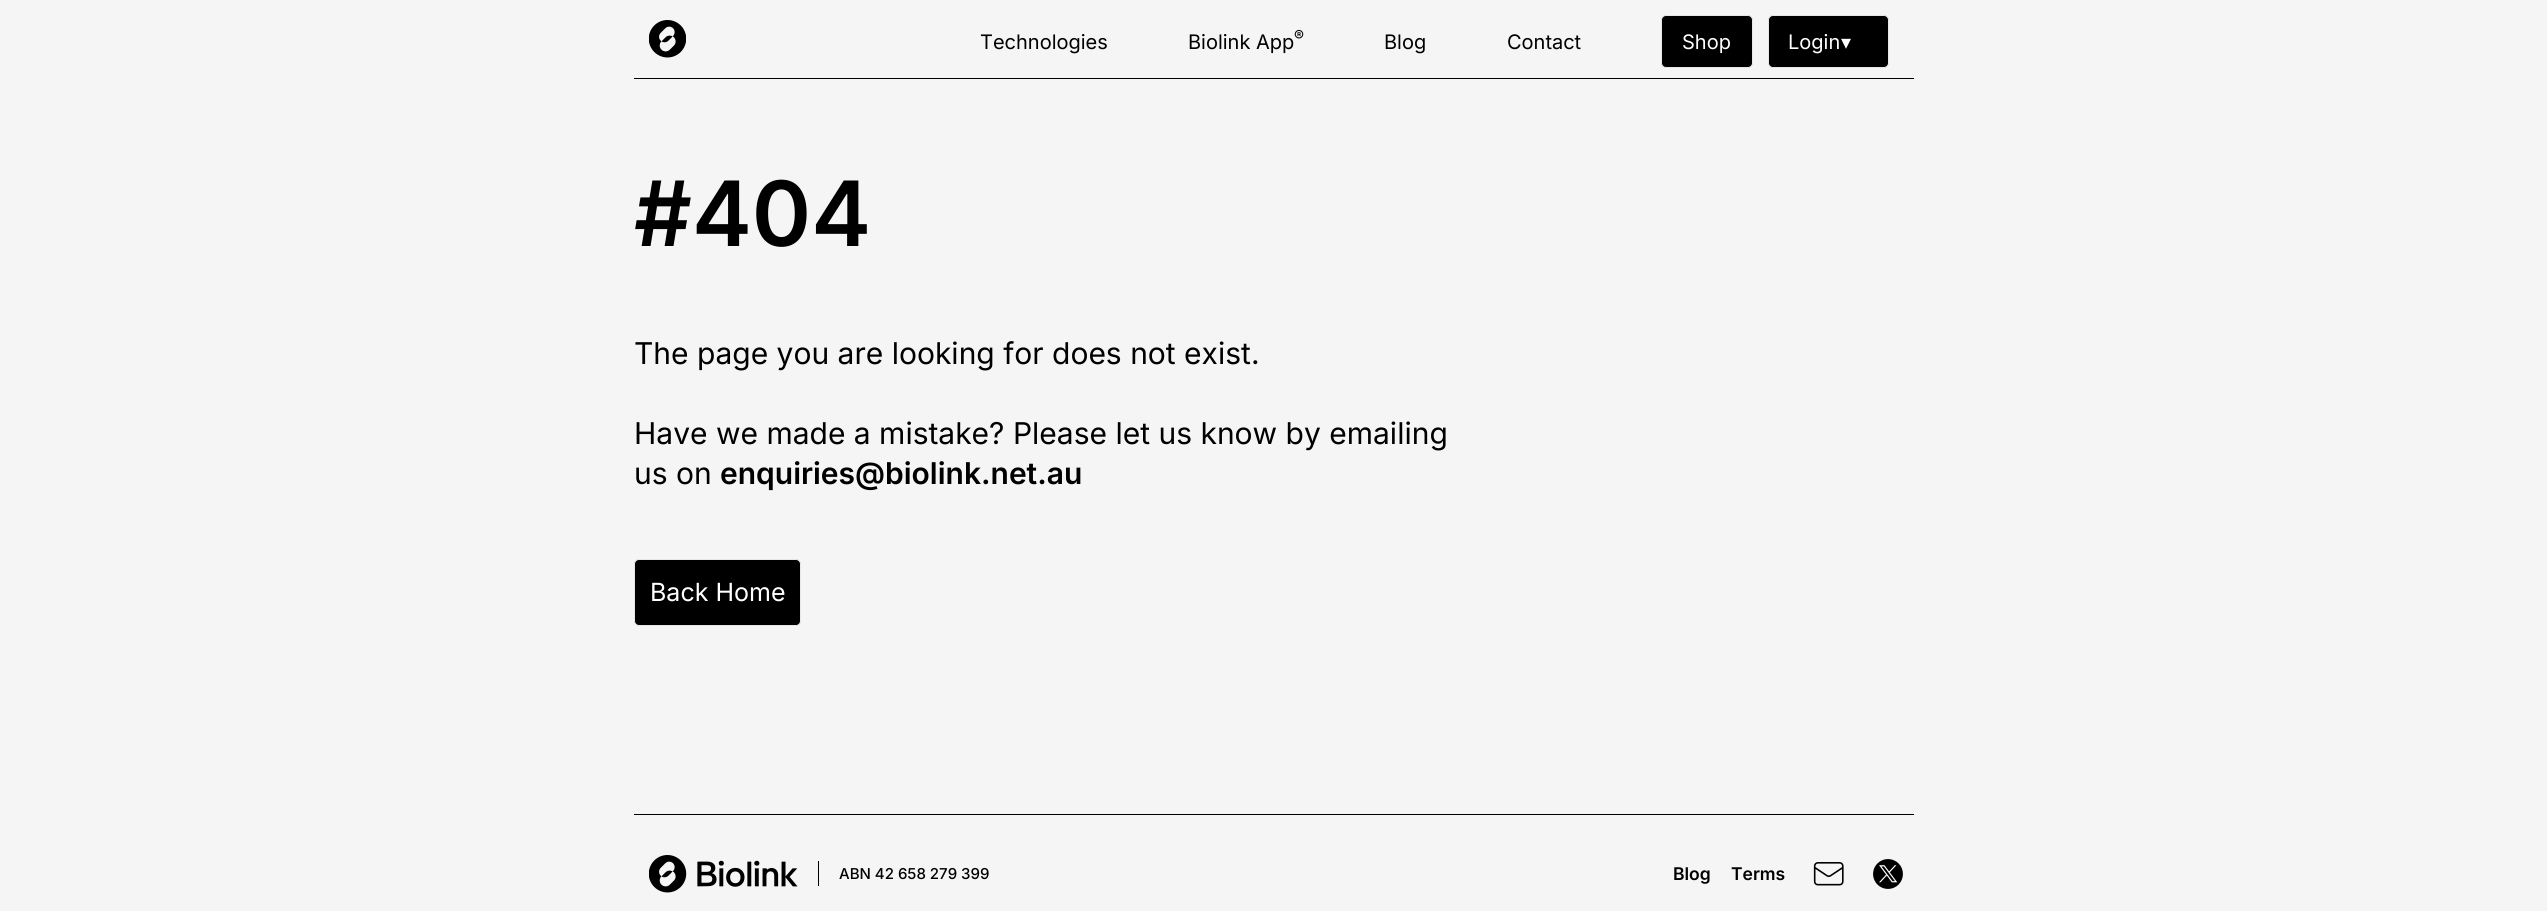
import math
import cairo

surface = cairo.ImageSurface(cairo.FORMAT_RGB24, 2547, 911)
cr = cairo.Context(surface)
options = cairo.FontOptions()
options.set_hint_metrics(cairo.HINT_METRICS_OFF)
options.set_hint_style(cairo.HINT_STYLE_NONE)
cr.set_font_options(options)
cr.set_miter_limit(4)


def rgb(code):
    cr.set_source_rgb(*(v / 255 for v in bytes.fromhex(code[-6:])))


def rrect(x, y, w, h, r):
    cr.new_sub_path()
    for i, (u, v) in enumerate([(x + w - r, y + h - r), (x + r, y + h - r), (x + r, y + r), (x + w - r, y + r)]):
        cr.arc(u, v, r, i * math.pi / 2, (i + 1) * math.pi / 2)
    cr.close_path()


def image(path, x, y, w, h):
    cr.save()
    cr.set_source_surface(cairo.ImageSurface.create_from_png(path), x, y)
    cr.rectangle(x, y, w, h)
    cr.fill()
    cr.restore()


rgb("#f5f5f5")
cr.paint()
rgb("#000000")
cr.rectangle(634, 78, 1280, 1)
cr.fill()
image("img/1.png", 649, 20, 37, 38)
rrect(1661.5, 15.5, 91, 52, 4.5)
cr.fill_preserve()
rgb("#e5e7eb")
cr.set_line_width(1)
cr.stroke()
rgb("#000000")
rrect(1768.5, 15.5, 120, 52, 4.5)
cr.fill_preserve()
rgb("#e5e7eb")
cr.stroke()
rgb("#000000")
rrect(634.5, 559.5, 166, 66, 4.5)
cr.fill_preserve()
rgb("#e5e7eb")
cr.stroke()
rgb("#000000")
cr.rectangle(634, 814, 1280, 1)
cr.fill()
image("img/2.png", 649, 855, 149, 38)
cr.rectangle(818, 861, 1, 25)
cr.fill()
image("img/3.png", 1813, 862, 31, 24)
image("img/4.png", 1873, 859, 30, 30)
cr.select_font_face("Inter")
cr.set_font_size(20)
cr.move_to(980, 49)
cr.show_text("Technologies")
cr.move_to(1188, 49)
cr.show_text("Biolink App")
cr.set_font_size(15)
cr.move_to(1294, 41)
cr.show_text("®")
cr.set_font_size(20)
cr.move_to(1384, 49)
cr.show_text("Blog")
cr.move_to(1507, 49)
cr.show_text("Contact")
rgb("#ffffff")
cr.move_to(1682, 49)
cr.show_text("Shop")
cr.move_to(1788, 49)
cr.show_text("Login")
cr.select_font_face("DejaVu Sans")
cr.move_to(1841, 49)
cr.show_text("▾")
cr.select_font_face("Inter SemiBold")
cr.set_font_size(90)
rgb("#000000")
cr.move_to(634, 246)
cr.show_text("#404")
cr.select_font_face("Inter")
cr.set_font_size(30)
for x, y, s in [
    (634, 364, "The page you are looking for does not exist."),
    (634, 444, "Have we made a mistake? Please let us know by emailing"),
    (634, 484, "us on"),
]:
    cr.move_to(x, y)
    cr.show_text(s)
cr.select_font_face("Inter SemiBold")
cr.move_to(720, 484)
cr.show_text("enquiries@biolink.net.au")
cr.select_font_face("Inter")
cr.set_font_size(25)
rgb("#ffffff")
cr.move_to(650, 601)
cr.show_text("Back Home")
cr.select_font_face("Inter Medium")
cr.set_font_size(15)
rgb("#000000")
cr.move_to(839, 879)
cr.show_text("ABN 42 658 279 399")
cr.select_font_face("Inter SemiBold")
cr.set_font_size(17.5)
cr.move_to(1673, 880)
cr.show_text("Blog")
cr.move_to(1731, 880)
cr.show_text("Terms")
surface.write_to_png("page.png")
